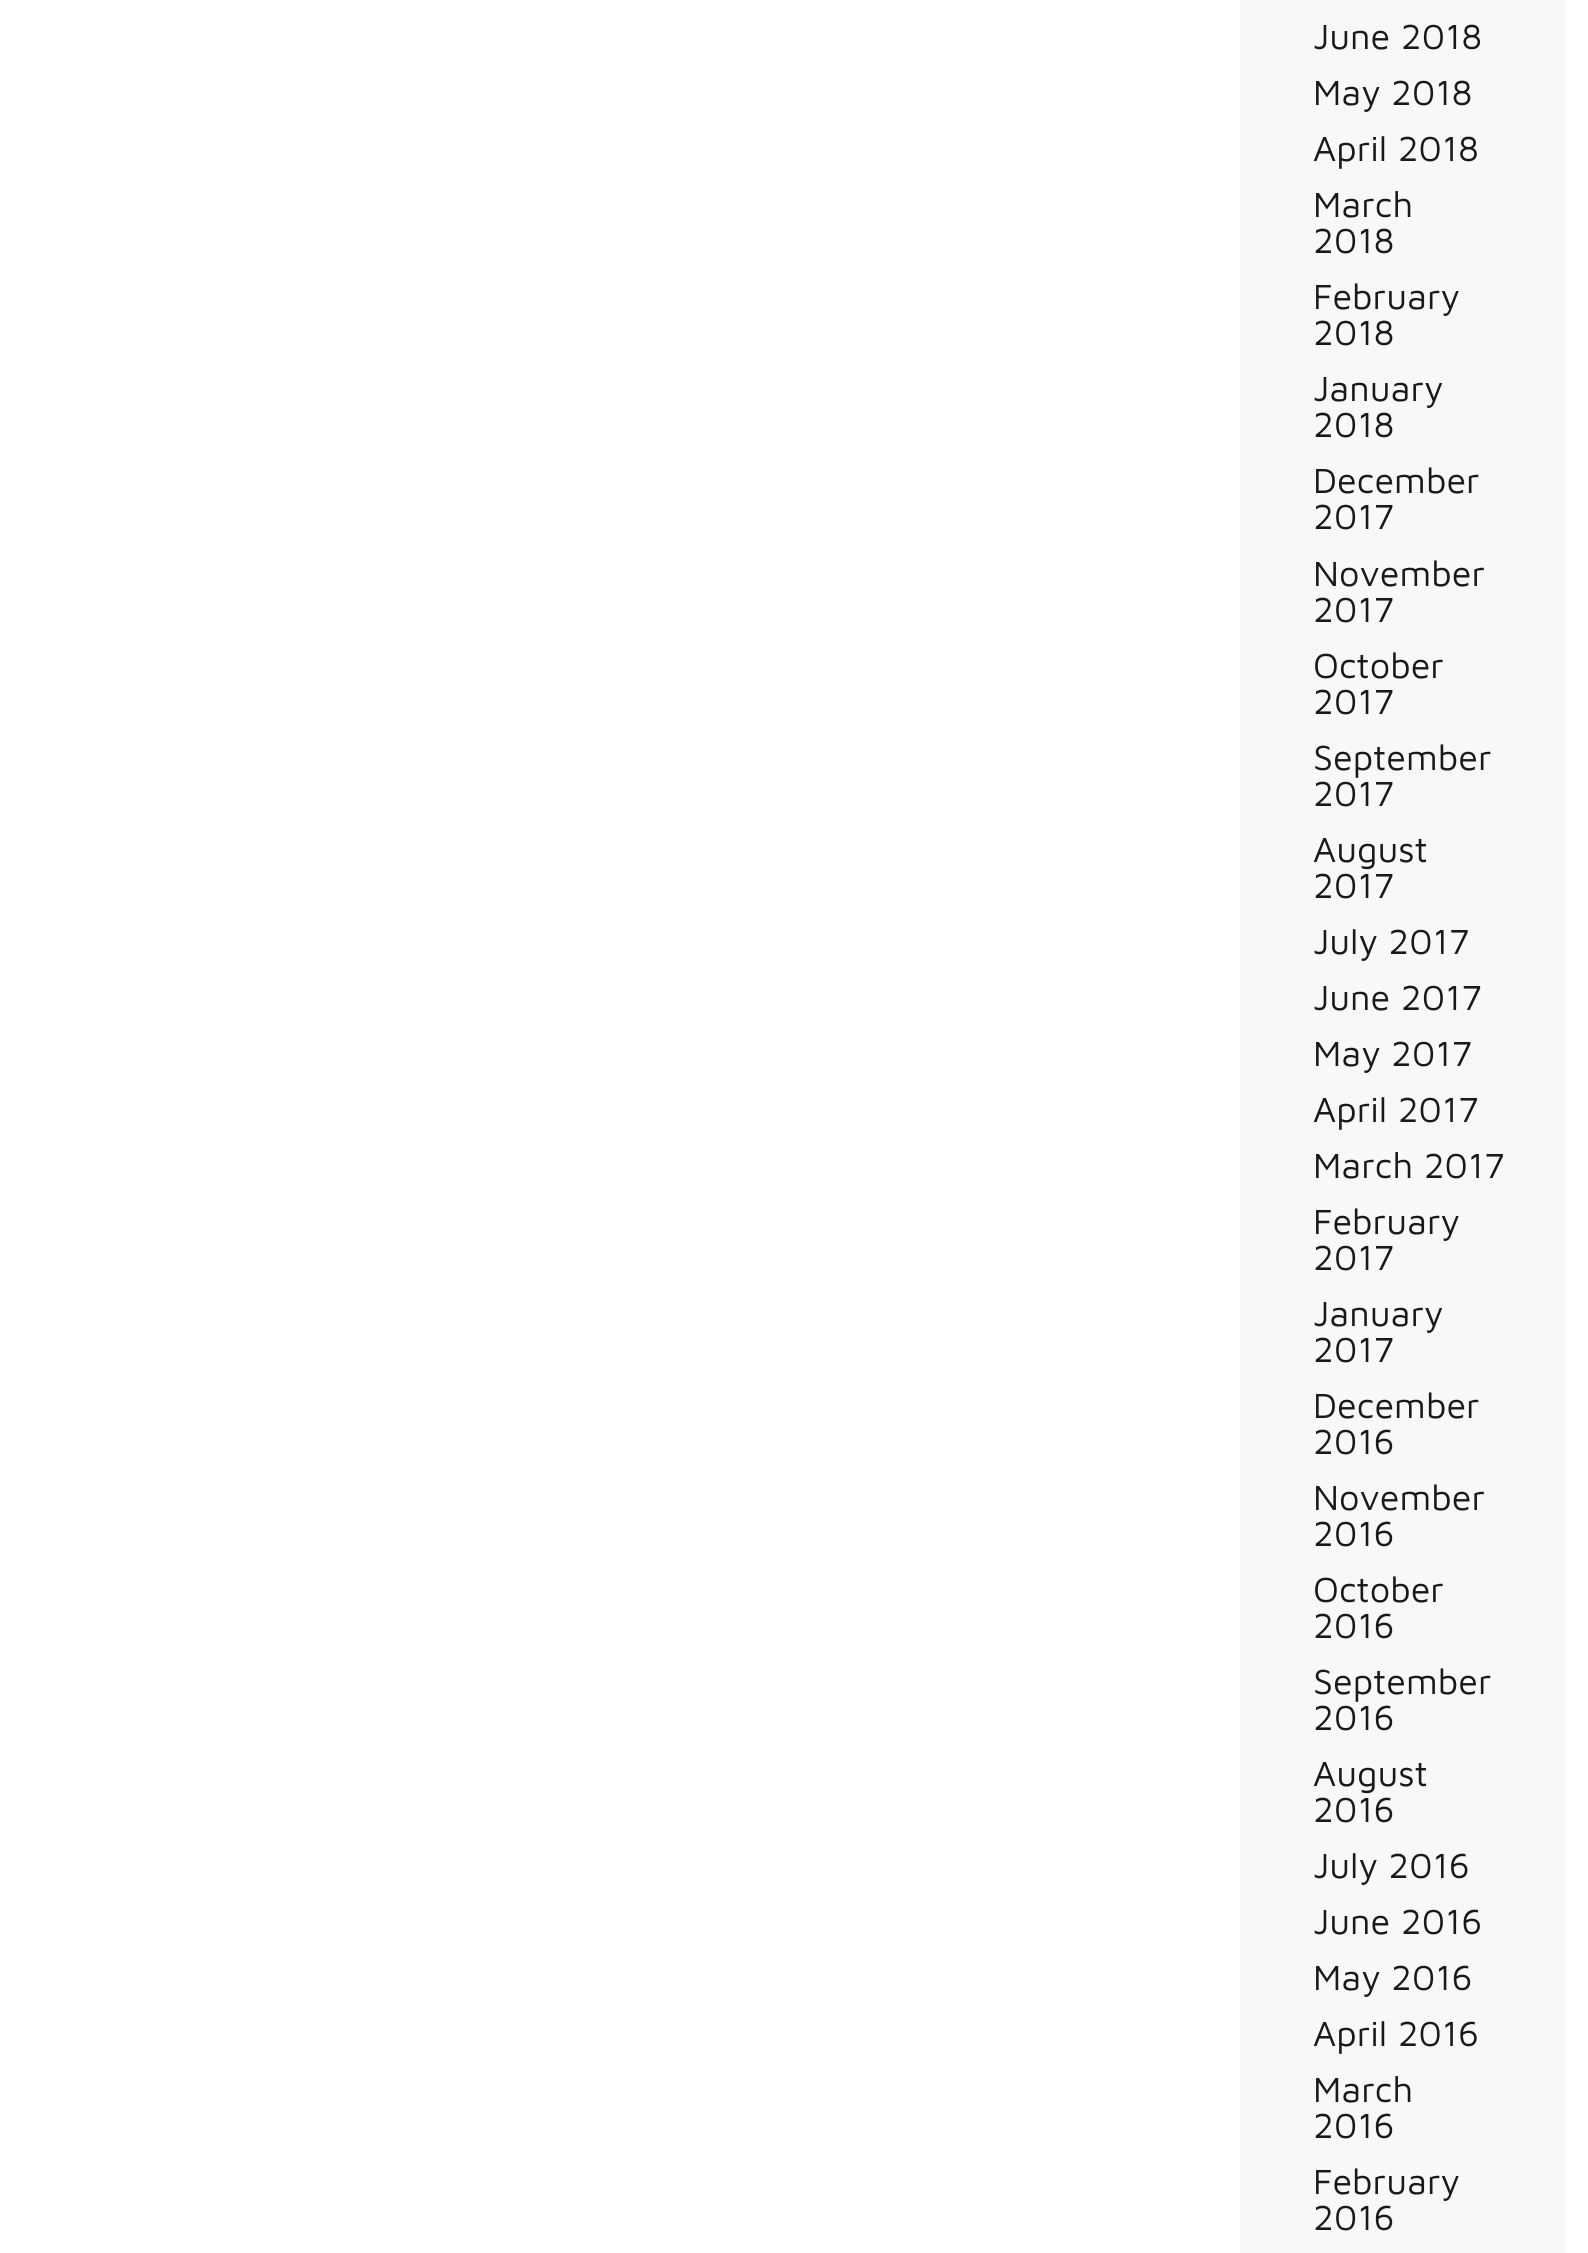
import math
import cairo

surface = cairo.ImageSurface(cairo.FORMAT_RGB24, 1588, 2253)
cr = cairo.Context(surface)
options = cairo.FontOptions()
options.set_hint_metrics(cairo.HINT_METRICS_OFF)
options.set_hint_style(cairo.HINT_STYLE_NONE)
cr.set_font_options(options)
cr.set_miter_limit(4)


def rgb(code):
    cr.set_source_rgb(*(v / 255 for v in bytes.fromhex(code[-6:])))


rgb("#ffffff")
cr.paint()
rgb("#f8f8f8")
cr.rectangle(1240, 0, 325, 2253)
cr.fill()
cr.select_font_face("Maven Pro")
cr.set_font_size(36)
rgb("#191919")
for x, y, s in [
    (1313, 49, "June 2018"),
    (1313, 105, "May 2018"),
    (1313, 161, "April 2018"),
    (1313, 217, "March"),
    (1313, 253, "2018"),
    (1313, 309, "February"),
    (1313, 345, "2018"),
    (1313, 401, "January"),
    (1313, 437, "2018"),
    (1313, 493, "December"),
    (1313, 529, "2017"),
    (1313, 586, "November"),
    (1313, 622, "2017"),
    (1313, 678, "October"),
    (1313, 714, "2017"),
    (1313, 770, "September"),
    (1313, 806, "2017"),
    (1313, 862, "August"),
    (1313, 898, "2017"),
    (1313, 954, "July 2017"),
    (1313, 1010, "June 2017"),
    (1313, 1066, "May 2017"),
    (1313, 1122, "April 2017"),
    (1313, 1178, "March 2017"),
    (1313, 1234, "February"),
    (1313, 1270, "2017"),
    (1313, 1326, "January"),
    (1313, 1362, "2017"),
    (1313, 1418, "December"),
    (1313, 1454, "2016"),
    (1313, 1510, "November"),
    (1313, 1546, "2016"),
    (1313, 1602, "October"),
    (1313, 1638, "2016"),
    (1313, 1694, "September"),
    (1313, 1730, "2016"),
    (1313, 1786, "August"),
    (1313, 1822, "2016"),
    (1313, 1878, "July 2016"),
    (1313, 1934, "June 2016"),
    (1313, 1990, "May 2016"),
    (1313, 2046, "April 2016"),
    (1313, 2102, "March"),
    (1313, 2138, "2016"),
    (1313, 2194, "February"),
    (1313, 2230, "2016"),
]:
    cr.move_to(x, y)
    cr.show_text(s)
surface.write_to_png("page.png")
